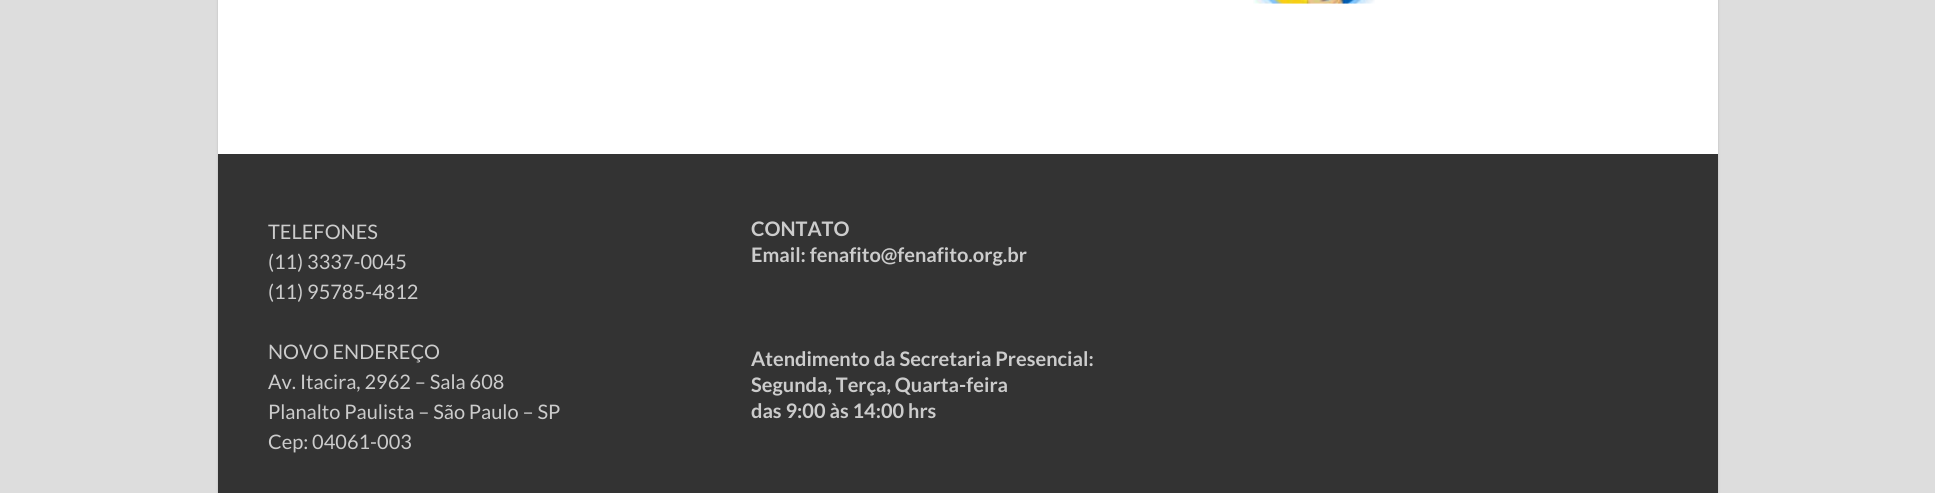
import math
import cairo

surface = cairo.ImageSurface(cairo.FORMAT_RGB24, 1935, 493)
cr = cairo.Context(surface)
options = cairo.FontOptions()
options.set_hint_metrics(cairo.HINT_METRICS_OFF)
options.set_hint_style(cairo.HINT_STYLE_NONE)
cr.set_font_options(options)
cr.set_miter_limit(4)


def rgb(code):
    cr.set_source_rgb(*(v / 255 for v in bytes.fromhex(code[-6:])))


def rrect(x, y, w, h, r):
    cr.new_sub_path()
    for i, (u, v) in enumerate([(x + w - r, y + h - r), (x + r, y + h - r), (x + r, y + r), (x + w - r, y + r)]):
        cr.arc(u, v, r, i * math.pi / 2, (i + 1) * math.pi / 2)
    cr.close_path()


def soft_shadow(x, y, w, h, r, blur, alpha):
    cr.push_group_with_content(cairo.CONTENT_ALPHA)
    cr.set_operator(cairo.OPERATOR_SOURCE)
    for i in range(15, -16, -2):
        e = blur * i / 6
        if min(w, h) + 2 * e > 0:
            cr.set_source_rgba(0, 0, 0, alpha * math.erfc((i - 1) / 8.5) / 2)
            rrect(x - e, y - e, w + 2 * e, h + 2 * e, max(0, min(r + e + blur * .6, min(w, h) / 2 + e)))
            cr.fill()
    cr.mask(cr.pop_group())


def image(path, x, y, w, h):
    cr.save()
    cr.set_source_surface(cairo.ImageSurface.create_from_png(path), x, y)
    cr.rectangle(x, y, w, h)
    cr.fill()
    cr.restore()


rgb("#dddddd")
cr.paint()
rgb("#bbbbbb")
soft_shadow(218, -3, 1500, 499, 0, 1, 1)
rgb("#ffffff")
cr.rectangle(218, 0, 1500, 154)
cr.fill()
image("img/1.png", 1253, 0, 122, 4)
rgb("#333333")
cr.rectangle(218, 154, 1500, 339)
cr.fill()
cr.select_font_face("Lato")
cr.set_font_size(20)
rgb("#cccccc")
for x, y, s in [
    (268, 239, "TELEFONES"),
    (268, 269, "(11) 3337-0045"),
    (268, 299, "(11) 95785-4812"),
    (268, 359, "NOVO ENDEREÇO"),
    (268, 389, "Av. Itacira, 2962 – Sala 608"),
    (268, 419, "Planalto Paulista – São Paulo – SP"),
    (268, 449, "Cep: 04061-003"),
]:
    cr.move_to(x, y)
    cr.show_text(s)
cr.select_font_face("Lato", cairo.FONT_SLANT_NORMAL, cairo.FONT_WEIGHT_BOLD)
for x, y, s in [
    (751, 236, "CONTATO"),
    (751, 262, "Email: fenafito@fenafito.org.br"),
    (751, 366, "Atendimento da Secretaria Presencial:"),
    (751, 392, "Segunda, Terça, Quarta-feira"),
    (751, 418, "das 9:00 às 14:00 hrs"),
]:
    cr.move_to(x, y)
    cr.show_text(s)
surface.write_to_png("page.png")
